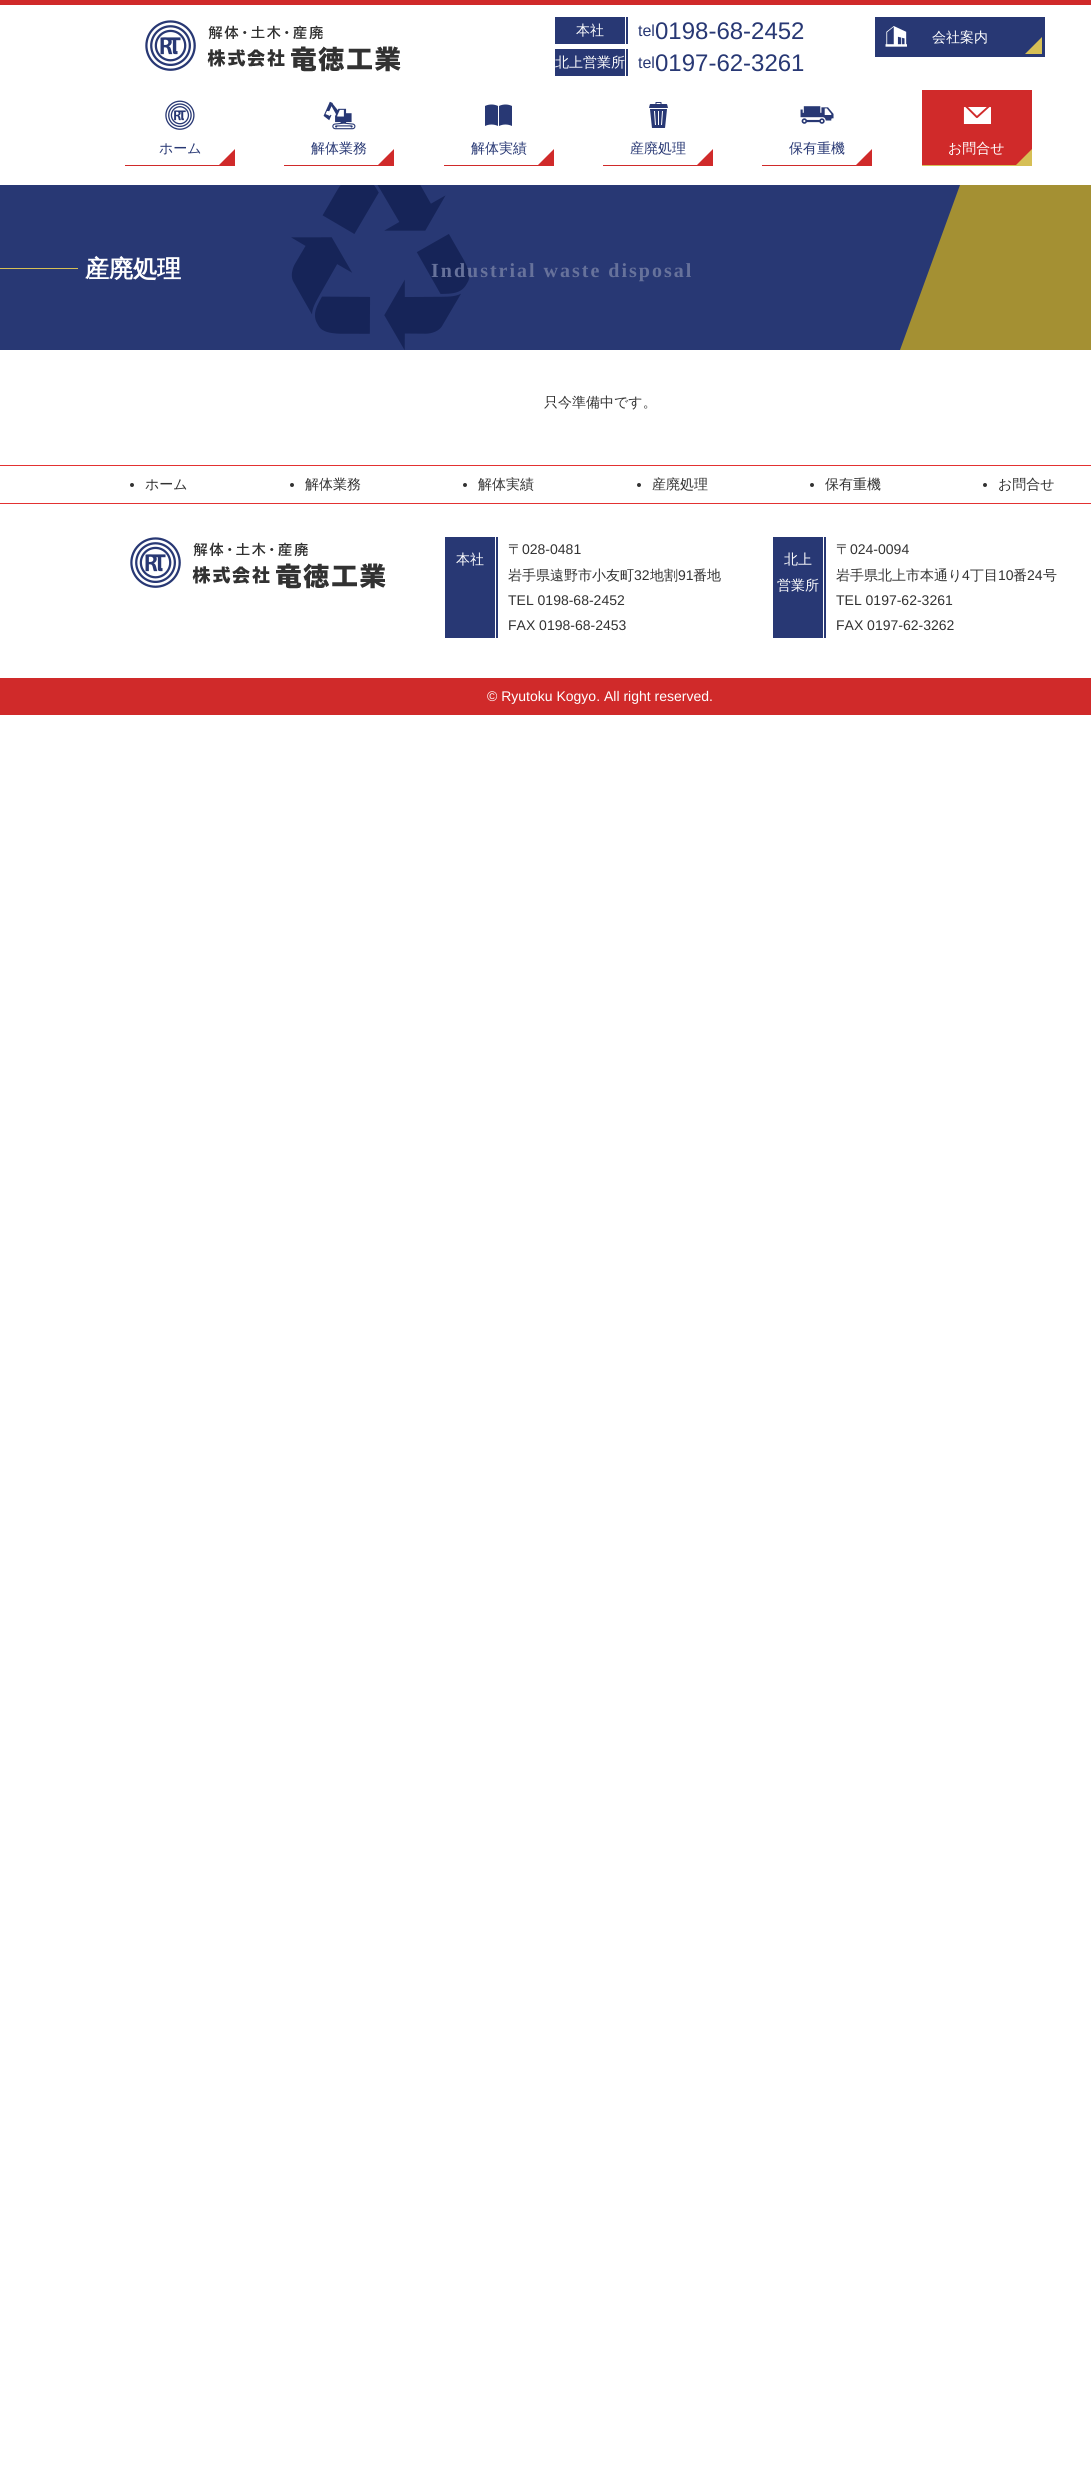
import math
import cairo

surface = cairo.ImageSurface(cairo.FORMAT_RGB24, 1091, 2474)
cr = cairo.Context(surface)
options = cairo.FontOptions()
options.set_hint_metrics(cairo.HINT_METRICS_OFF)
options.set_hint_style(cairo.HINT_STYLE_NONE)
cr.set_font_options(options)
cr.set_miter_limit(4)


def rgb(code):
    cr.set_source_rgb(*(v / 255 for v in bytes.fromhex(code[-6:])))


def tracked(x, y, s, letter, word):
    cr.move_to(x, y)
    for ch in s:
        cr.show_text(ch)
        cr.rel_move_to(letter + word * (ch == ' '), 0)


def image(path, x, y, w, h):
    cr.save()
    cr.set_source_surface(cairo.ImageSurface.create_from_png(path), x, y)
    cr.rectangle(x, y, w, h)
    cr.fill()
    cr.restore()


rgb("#ffffff")
cr.paint()
rgb("#d02a2a")
cr.rectangle(0, 0, 1091, 5)
cr.fill()
image("img/1.png", 145, 20, 256, 52)
for x, y, w, h, color in [
    (555, 17, 70, 27, "#283874"),
    (626, 17, 2, 27, "#283874"),
    (555, 49, 70, 27, "#283874"),
    (626, 49, 2, 27, "#283874"),
    (875, 17, 170, 40, "#283874"),
]:
    rgb(color)
    cr.rectangle(x, y, w, h)
    cr.fill()
image("img/2.png", 885, 26, 157, 28)
image("img/3.png", 219, 149, 16, 16)
rgb("#d02a2a")
cr.rectangle(125, 165, 110, 1)
cr.fill()
image("img/4.png", 165, 100, 30, 30)
image("img/3.png", 378, 149, 16, 16)
cr.rectangle(284, 165, 110, 1)
cr.fill()
image("img/5.png", 323, 101, 33, 29)
image("img/3.png", 538, 149, 16, 16)
cr.rectangle(444, 165, 110, 1)
cr.fill()
image("img/6.png", 485, 104, 27, 22)
image("img/3.png", 697, 149, 16, 16)
cr.rectangle(603, 165, 110, 1)
cr.fill()
image("img/7.png", 649, 102, 19, 26)
image("img/3.png", 856, 149, 16, 16)
cr.rectangle(762, 165, 110, 1)
cr.fill()
image("img/8.png", 800, 106, 34, 18)
cr.rectangle(922, 90, 110, 75)
cr.fill()
image("img/9.png", 1016, 149, 16, 16)
rgb("#d6bf55")
cr.rectangle(922, 165, 110, 1)
cr.fill()
image("img/10.png", 963, 107, 28, 17)
gradient = cairo.LinearGradient(114, -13, 1086, 548)
gradient.add_color_stop_rgba(0, 0.157, 0.22, 0.455, 1)
gradient.add_color_stop_rgba(0.5, 0.157, 0.22, 0.455, 1)
gradient.add_color_stop_rgba(0.5, 0.643, 0.565, 0.2, 1)
gradient.add_color_stop_rgba(1, 0.643, 0.565, 0.2, 1)
cr.set_source(gradient)
cr.rectangle(0, 185, 1091, 165)
cr.fill()
image("img/11.png", 291, 185, 669, 165)
for x, y, w, h, color in [
    (0, 268, 78, 1, "#d6bf55"),
    (0, 465, 1091, 1, "#e33131"),
    (0, 503, 1091, 1, "#e33131"),
]:
    rgb(color)
    cr.rectangle(x, y, w, h)
    cr.fill()
rgb("#323232")
cr.arc(132, 485, 2, 0, 2 * math.pi)
cr.fill()
cr.arc(292, 485, 2, 0, 2 * math.pi)
cr.fill()
cr.arc(465, 485, 2, 0, 2 * math.pi)
cr.fill()
cr.arc(639, 485, 2, 0, 2 * math.pi)
cr.fill()
cr.arc(812, 485, 2, 0, 2 * math.pi)
cr.fill()
cr.arc(985, 485, 2, 0, 2 * math.pi)
cr.fill()
image("img/1.png", 130, 537, 256, 52)
for x, y, w, h, color in [
    (445, 537, 50, 101, "#283874"),
    (496, 537, 2, 101, "#283874"),
    (773, 537, 50, 101, "#283874"),
    (824, 537, 2, 101, "#283874"),
    (0, 678, 1091, 37, "#d02a2a"),
]:
    rgb(color)
    cr.rectangle(x, y, w, h)
    cr.fill()
cr.select_font_face("WenQuanYi Zen Hei Medium")
cr.set_font_size(14)
rgb("#ffffff")
cr.move_to(576, 35)
cr.show_text("本社")
cr.select_font_face("Liberation Sans")
cr.set_font_size(16)
rgb("#283874")
cr.move_to(638, 36)
cr.show_text("tel")
cr.set_font_size(24)
cr.move_to(655, 39)
cr.show_text("0198-68-2452")
cr.select_font_face("WenQuanYi Zen Hei Medium")
cr.set_font_size(14)
rgb("#ffffff")
cr.move_to(555, 67)
cr.show_text("北上営業所")
cr.select_font_face("Liberation Sans")
cr.set_font_size(16)
rgb("#283874")
cr.move_to(638, 68)
cr.show_text("tel")
cr.set_font_size(24)
cr.move_to(655, 71)
cr.show_text("0197-62-3261")
cr.select_font_face("WenQuanYi Zen Hei Medium")
cr.set_font_size(14)
rgb("#ffffff")
cr.move_to(932, 42)
cr.show_text("会社案内")
rgb("#283874")
for x, y, s in [
    (159, 153, "ホーム"),
    (311, 153, "解体業務"),
    (471, 153, "解体実績"),
    (630, 153, "産廃処理"),
    (789, 153, "保有重機"),
]:
    cr.move_to(x, y)
    cr.show_text(s)
rgb("#ffffff")
cr.move_to(948, 153)
cr.show_text("お問合せ")
cr.select_font_face("WenQuanYi Zen Hei", cairo.FONT_SLANT_NORMAL, cairo.FONT_WEIGHT_BOLD)
cr.set_font_size(24)
cr.move_to(85, 277)
cr.show_text("産廃処理")
cr.select_font_face("Liberation Serif", cairo.FONT_SLANT_NORMAL, cairo.FONT_WEIGHT_BOLD)
cr.set_font_size(20)
rgb("#67729b")
tracked(431, 277, "Industrial waste disposal", 2, 0)
cr.select_font_face("WenQuanYi Zen Hei Medium")
cr.set_font_size(14)
rgb("#323232")
for x, y, s in [
    (544, 407, "只今準備中です。"),
    (145, 489, "ホーム"),
    (305, 489, "解体業務"),
    (478, 489, "解体実績"),
    (652, 489, "産廃処理"),
    (825, 489, "保有重機"),
    (998, 489, "お問合せ"),
]:
    cr.move_to(x, y)
    cr.show_text(s)
rgb("#ffffff")
cr.move_to(456, 564)
cr.show_text("本社")
rgb("#323232")
cr.move_to(508, 554)
cr.show_text("〒")
cr.select_font_face("Liberation Sans")
cr.move_to(522, 554)
cr.show_text("028-0481")
cr.select_font_face("WenQuanYi Zen Hei Medium")
cr.move_to(508, 580)
cr.show_text("岩手県遠野市小友町")
cr.select_font_face("Liberation Sans")
cr.move_to(634, 580)
cr.show_text("32")
cr.select_font_face("WenQuanYi Zen Hei Medium")
cr.move_to(650, 580)
cr.show_text("地割")
cr.select_font_face("Liberation Sans")
cr.move_to(678, 580)
cr.show_text("91")
cr.select_font_face("WenQuanYi Zen Hei Medium")
cr.move_to(693, 580)
cr.show_text("番地")
cr.select_font_face("Liberation Sans")
cr.move_to(508, 605)
cr.show_text("TEL 0198-68-2452")
cr.move_to(508, 630)
cr.show_text("FAX 0198-68-2453")
cr.select_font_face("WenQuanYi Zen Hei Medium")
rgb("#ffffff")
cr.move_to(784, 564)
cr.show_text("北上")
cr.move_to(777, 590)
cr.show_text("営業所")
rgb("#323232")
cr.move_to(836, 554)
cr.show_text("〒")
cr.select_font_face("Liberation Sans")
cr.move_to(850, 554)
cr.show_text("024-0094")
cr.select_font_face("WenQuanYi Zen Hei Medium")
cr.move_to(836, 580)
cr.show_text("岩手県北上市本通り")
cr.select_font_face("Liberation Sans")
cr.move_to(962, 580)
cr.show_text("4")
cr.select_font_face("WenQuanYi Zen Hei Medium")
cr.move_to(970, 580)
cr.show_text("丁目")
cr.select_font_face("Liberation Sans")
cr.move_to(998, 580)
cr.show_text("10")
cr.select_font_face("WenQuanYi Zen Hei Medium")
cr.move_to(1013, 580)
cr.show_text("番")
cr.select_font_face("Liberation Sans")
cr.move_to(1027, 580)
cr.show_text("24")
cr.select_font_face("WenQuanYi Zen Hei Medium")
cr.move_to(1043, 580)
cr.show_text("号")
cr.select_font_face("Liberation Sans")
cr.move_to(836, 605)
cr.show_text("TEL 0197-62-3261")
cr.move_to(836, 630)
cr.show_text("FAX 0197-62-3262")
rgb("#ffffff")
cr.move_to(487, 701)
cr.show_text("© Ryutoku Kogyo. All right reserved.")
surface.write_to_png("page.png")
